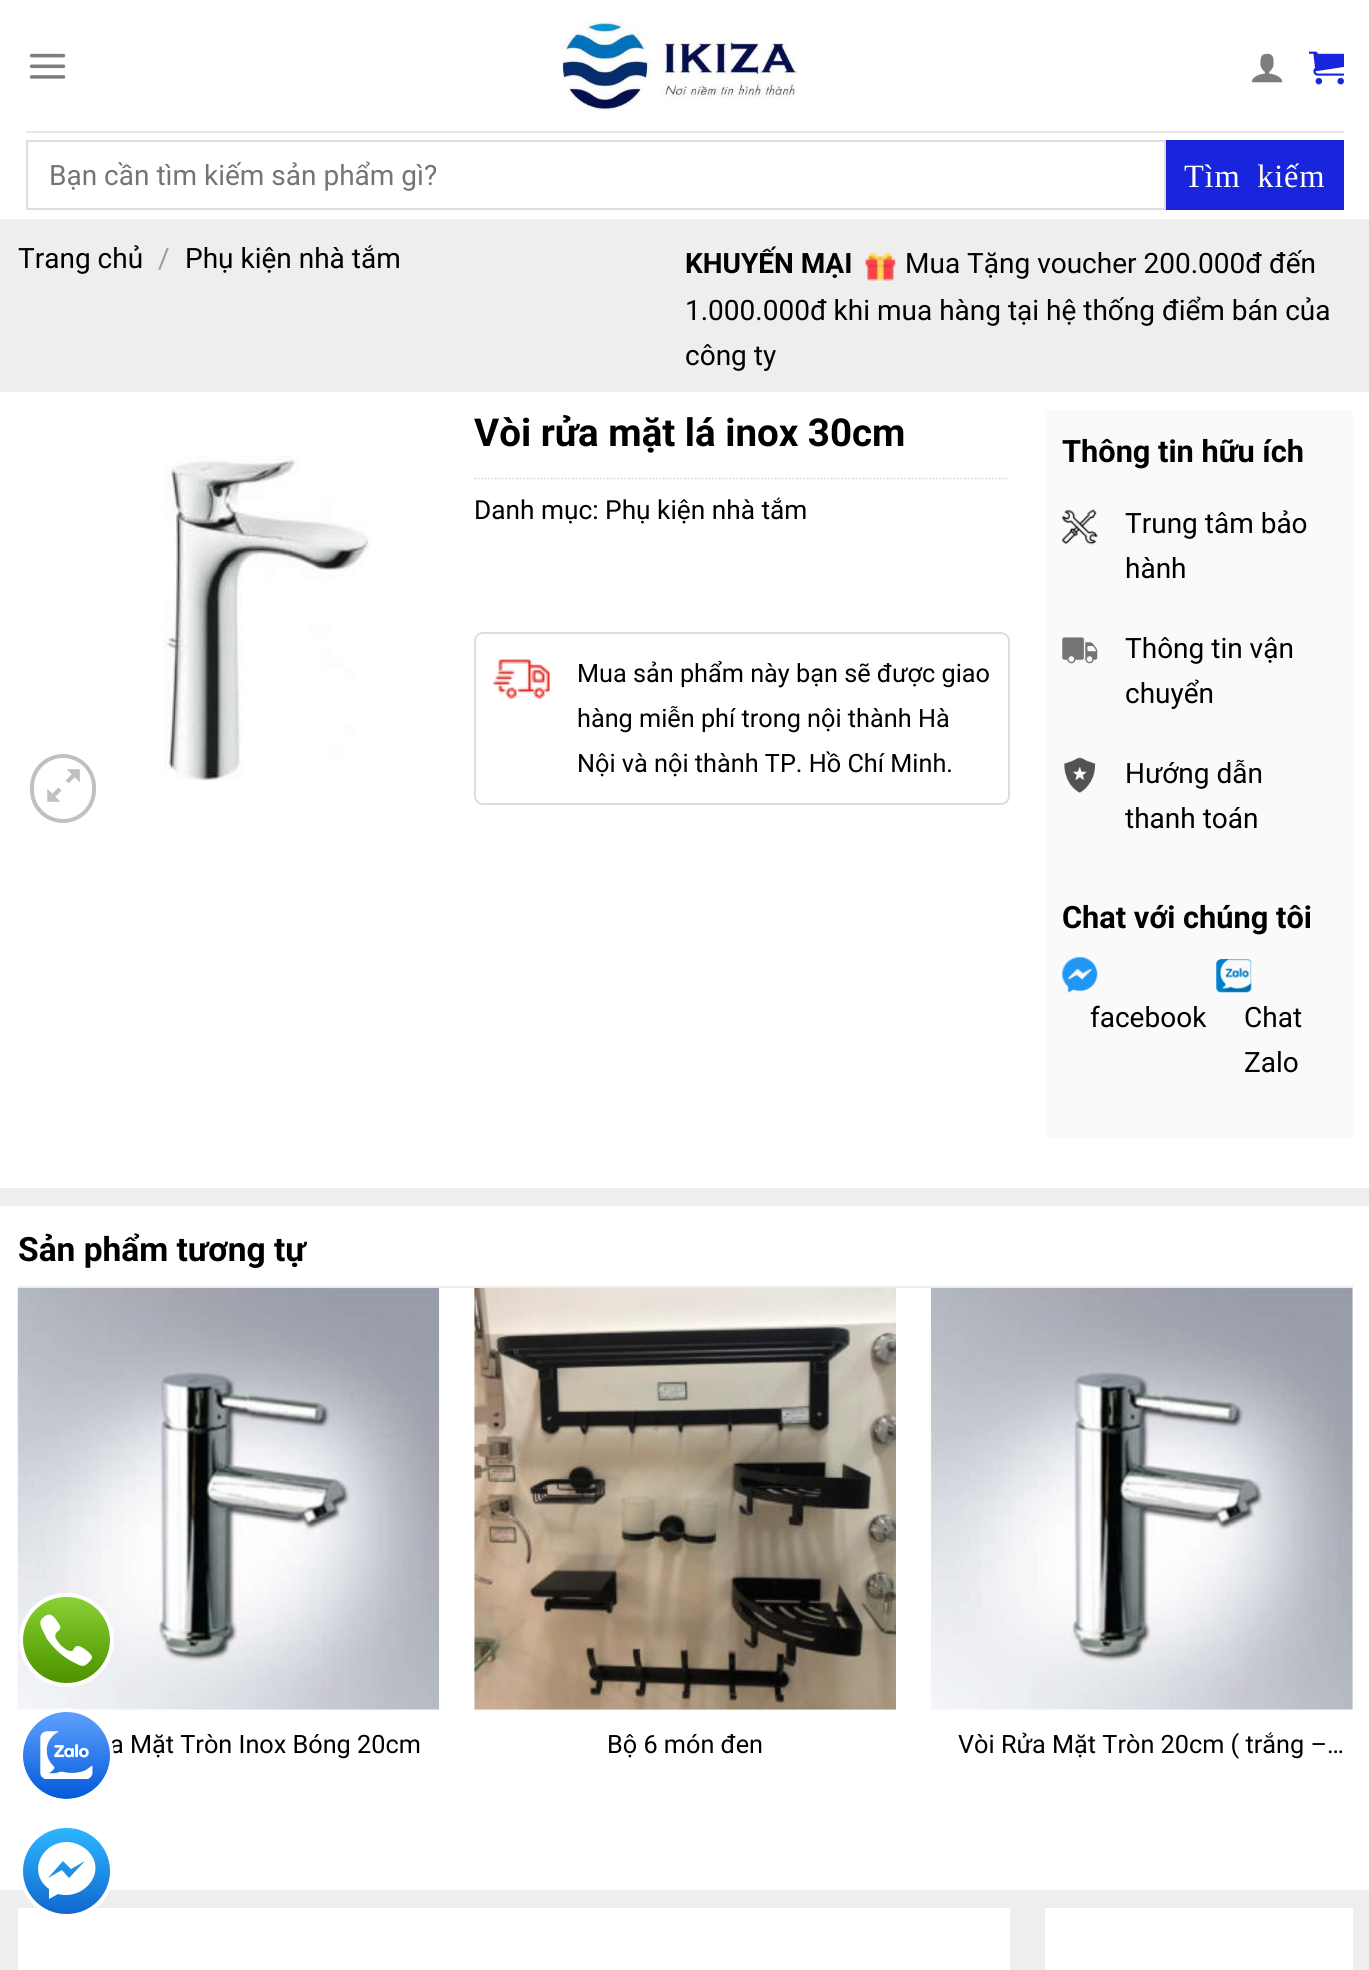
import math
import cairo

surface = cairo.ImageSurface(cairo.FORMAT_RGB24, 1369, 1970)
cr = cairo.Context(surface)
options = cairo.FontOptions()
options.set_hint_metrics(cairo.HINT_METRICS_OFF)
options.set_hint_style(cairo.HINT_STYLE_NONE)
cr.set_font_options(options)
cr.set_miter_limit(4)


def rgb(code):
    cr.set_source_rgb(*(v / 255 for v in bytes.fromhex(code[-6:])))


def tracked(x, y, s, letter, word):
    cr.move_to(x, y)
    for ch in s:
        cr.show_text(ch)
        cr.rel_move_to(letter + word * (ch == ' '), 0)


def rrect(x, y, w, h, r):
    cr.new_sub_path()
    for i, (u, v) in enumerate([(x + w - r, y + h - r), (x + r, y + h - r), (x + r, y + r), (x + w - r, y + r)]):
        cr.arc(u, v, r, i * math.pi / 2, (i + 1) * math.pi / 2)
    cr.close_path()


def image(path, x, y, w, h):
    cr.save()
    cr.set_source_surface(cairo.ImageSurface.create_from_png(path), x, y)
    cr.rectangle(x, y, w, h)
    cr.fill()
    cr.restore()


rgb("#ffffff")
cr.paint()
image("img/1.png", 29, 53, 37, 26)
image("img/2.png", 561, 21, 237, 90)
image("img/3.png", 1251, 53, 32, 30)
image("img/4.png", 1309, 51, 35, 34)
rgb("#e6e6e6")
cr.rectangle(26, 131, 1318, 2)
cr.fill()
cr.rectangle(27, 141, 1138, 68)
rgb("#dddddd")
cr.stroke()
rgb("#1925dd")
cr.rectangle(1167, 141, 176, 68)
cr.fill_preserve()
rgb("#1823d2")
cr.stroke()
rgb("#eeeeee")
cr.rectangle(0, 219, 1369, 1751)
cr.fill()
image("img/5.png", 865, 251, 31, 30)
rgb("#ffffff")
cr.rectangle(0, 392, 1369, 796)
cr.fill()
image("img/6.png", 163, 455, 210, 326)
rrect(32, 756, 62, 65, 31)
rgb("#c0c0c0")
cr.set_line_width(4)
cr.stroke()
image("img/7.png", 47, 769, 33, 33)
cr.new_path()
cr.move_to(474, 478.5)
cr.line_to(1010, 478.5)
rgb("#dddddd")
cr.set_line_width(1.8)
cr.set_dash([1.75, 1.75])
cr.stroke()
rrect(475, 633, 534, 171, 8)
cr.set_line_width(2)
cr.set_dash([])
cr.stroke()
image("img/8.png", 493, 659, 57, 40)
rgb("#fafafa")
cr.rectangle(1045, 410, 308, 728)
cr.fill()
image("img/9.png", 1062, 509, 36, 36)
image("img/10.png", 1062, 637, 36, 27)
image("img/11.png", 1064, 757, 32, 36)
image("img/12.png", 1062, 957, 36, 36)
image("img/13.png", 1216, 959, 36, 34)
rgb("#ffffff")
cr.rectangle(0, 1206, 1369, 684)
cr.fill()
rgb("#ececec")
cr.rectangle(18, 1286, 1335, 2)
cr.fill()
image("img/14.png", 17, 1288, 423, 422)
image("img/15.png", 474, 1288, 422, 422)
image("img/16.png", 931, 1288, 422, 422)
rgb("#ffffff")
cr.rectangle(18, 1908, 992, 62)
cr.fill()
cr.rectangle(1045, 1908, 308, 62)
cr.fill()
gradient = cairo.LinearGradient(67, 1596, 67, 1677)
gradient.add_color_stop_rgba(0, 0.541, 0.827, 0.212, 1)
gradient.add_color_stop_rgba(1, 0.314, 0.588, 0, 1)
cr.set_source(gradient)
cr.arc(66.5, 1640, 44, 0, 2 * math.pi)
cr.fill()
rgb("#ffffff")
cr.set_fill_rule(cairo.FILL_RULE_EVEN_ODD)
cr.new_path()
cr.move_to(51, 1615)
cr.curve_to(54, 1616, 57, 1621, 59, 1624)
cr.curve_to(65, 1633, 48, 1630, 59, 1643)
cr.curve_to(61, 1646, 64, 1648, 67, 1650)
cr.curve_to(76, 1654, 72, 1646, 78, 1646)
cr.curve_to(82, 1646, 92, 1654, 92, 1657)
cr.curve_to(92, 1659, 90, 1661, 89, 1662)
cr.curve_to(84, 1668, 81, 1666, 75, 1663)
cr.curve_to(64, 1658, 54, 1649, 47, 1639)
cr.line_to(42, 1629)
cr.curve_to(39, 1622, 40, 1620, 45, 1616)
cr.curve_to(47, 1615, 49, 1614, 51, 1615)
cr.close_path()
cr.fill()
rrect(21, 1595, 91, 90, 45)
cr.set_line_width(4)
cr.stroke()
image("img/17.png", 23, 1712, 87, 87)
gradient = cairo.LinearGradient(66, 1913, 66, 1828)
gradient.add_color_stop_rgba(0, 0.067, 0.408, 0.812, 1)
gradient.add_color_stop_rgba(1, 0.173, 0.718, 1, 1)
cr.set_source(gradient)
cr.arc(66.5, 1871, 44, 0, 2 * math.pi)
cr.fill()
rgb("#ffffff")
cr.new_path()
cr.move_to(67, 1842)
cr.curve_to(41, 1842, 27, 1873, 49, 1889)
cr.line_to(49, 1899)
cr.line_to(58, 1894)
cr.curve_to(84, 1901, 109, 1871, 87, 1850)
cr.curve_to(81, 1845, 74, 1842, 67, 1842)
cr.close_path()
cr.move_to(69, 1878)
cr.line_to(62, 1870)
cr.line_to(48, 1878)
cr.line_to(63, 1861)
cr.line_to(71, 1869)
cr.line_to(85, 1861)
cr.close_path()
cr.fill()
rrect(21, 1826, 91, 90, 45)
cr.stroke()
cr.select_font_face("Roboto")
cr.set_font_size(28)
rgb("#757575")
cr.move_to(49, 185)
cr.show_text("Bạn cần tìm kiếm sản phẩm gì?")
cr.select_font_face("Liberation Serif")
cr.set_font_size(32.5)
rgb("#ffffff")
tracked(1184, 187, "Tìm kiếm", 0.75, 8)
cr.select_font_face("Roboto")
cr.set_font_size(28)
rgb("#000000")
cr.move_to(18, 268)
cr.show_text("Trang chủ")
rgb("#9b9b9b")
cr.move_to(158, 268)
cr.show_text("/")
rgb("#000000")
cr.move_to(185, 268)
cr.show_text("Phụ kiện nhà tắm")
cr.select_font_face("Roboto", cairo.FONT_SLANT_NORMAL, cairo.FONT_WEIGHT_BOLD)
cr.move_to(685, 273)
cr.show_text("KHUYẾN MẠI")
cr.select_font_face("Roboto")
for x, y, s in [
    (905, 273, "Mua Tặng voucher 200.000đ đến"),
    (685, 320, "1.000.000đ khi mua hàng tại hệ thống điểm bán của"),
    (685, 365, "công ty"),
]:
    cr.move_to(x, y)
    cr.show_text(s)
cr.select_font_face("Roboto", cairo.FONT_SLANT_NORMAL, cairo.FONT_WEIGHT_BOLD)
cr.set_font_size(38.5)
cr.move_to(474, 446)
cr.show_text("Vòi rửa mặt lá inox 30cm")
cr.select_font_face("Roboto")
cr.set_font_size(26.25)
cr.move_to(474, 519)
cr.show_text("Danh mục: Phụ kiện nhà tắm")
cr.set_font_size(25.25)
for x, y, s in [
    (577, 682, "Mua sản phẩm này bạn sẽ được giao"),
    (577, 727, "hàng miễn phí trong nội thành Hà"),
    (577, 772, "Nội và nội thành TP. Hồ Chí Minh."),
]:
    cr.move_to(x, y)
    cr.show_text(s)
cr.select_font_face("Roboto", cairo.FONT_SLANT_NORMAL, cairo.FONT_WEIGHT_BOLD)
cr.set_font_size(30.75)
cr.move_to(1062, 462)
cr.show_text("Thông tin hữu ích")
cr.select_font_face("Roboto")
cr.set_font_size(28)
for x, y, s in [
    (1125, 533, "Trung tâm bảo"),
    (1125, 578, "hành"),
    (1125, 658, "Thông tin vận"),
    (1125, 703, "chuyển"),
    (1125, 783, "Hướng dẫn"),
    (1125, 828, "thanh toán"),
]:
    cr.move_to(x, y)
    cr.show_text(s)
cr.select_font_face("Roboto", cairo.FONT_SLANT_NORMAL, cairo.FONT_WEIGHT_BOLD)
cr.set_font_size(30.75)
cr.move_to(1062, 928)
cr.show_text("Chat với chúng tôi")
cr.select_font_face("Roboto")
cr.set_font_size(28)
for x, y, s in [
    (1090, 1027, "facebook"),
    (1244, 1027, "Chat"),
    (1244, 1072, "Zalo"),
]:
    cr.move_to(x, y)
    cr.show_text(s)
cr.select_font_face("Roboto", cairo.FONT_SLANT_NORMAL, cairo.FONT_WEIGHT_BOLD)
cr.set_font_size(33.5)
cr.move_to(18, 1261)
cr.show_text("Sản phẩm tương tự")
cr.select_font_face("Roboto")
cr.set_font_size(25.25)
for x, y, s in [
    (110, 1753, "a Mặt Tròn Inox Bóng 20cm"),
    (607, 1753, "Bộ 6 món đen"),
    (958, 1753, "Vòi Rửa Mặt Tròn 20cm ( trắng –…"),
]:
    cr.move_to(x, y)
    cr.show_text(s)
cr.new_path()
cr.arc(66.5, 1755.5, 45.5, 0, 2 * math.pi)
rgb("#ffffff")
cr.stroke()
surface.write_to_png("page.png")
